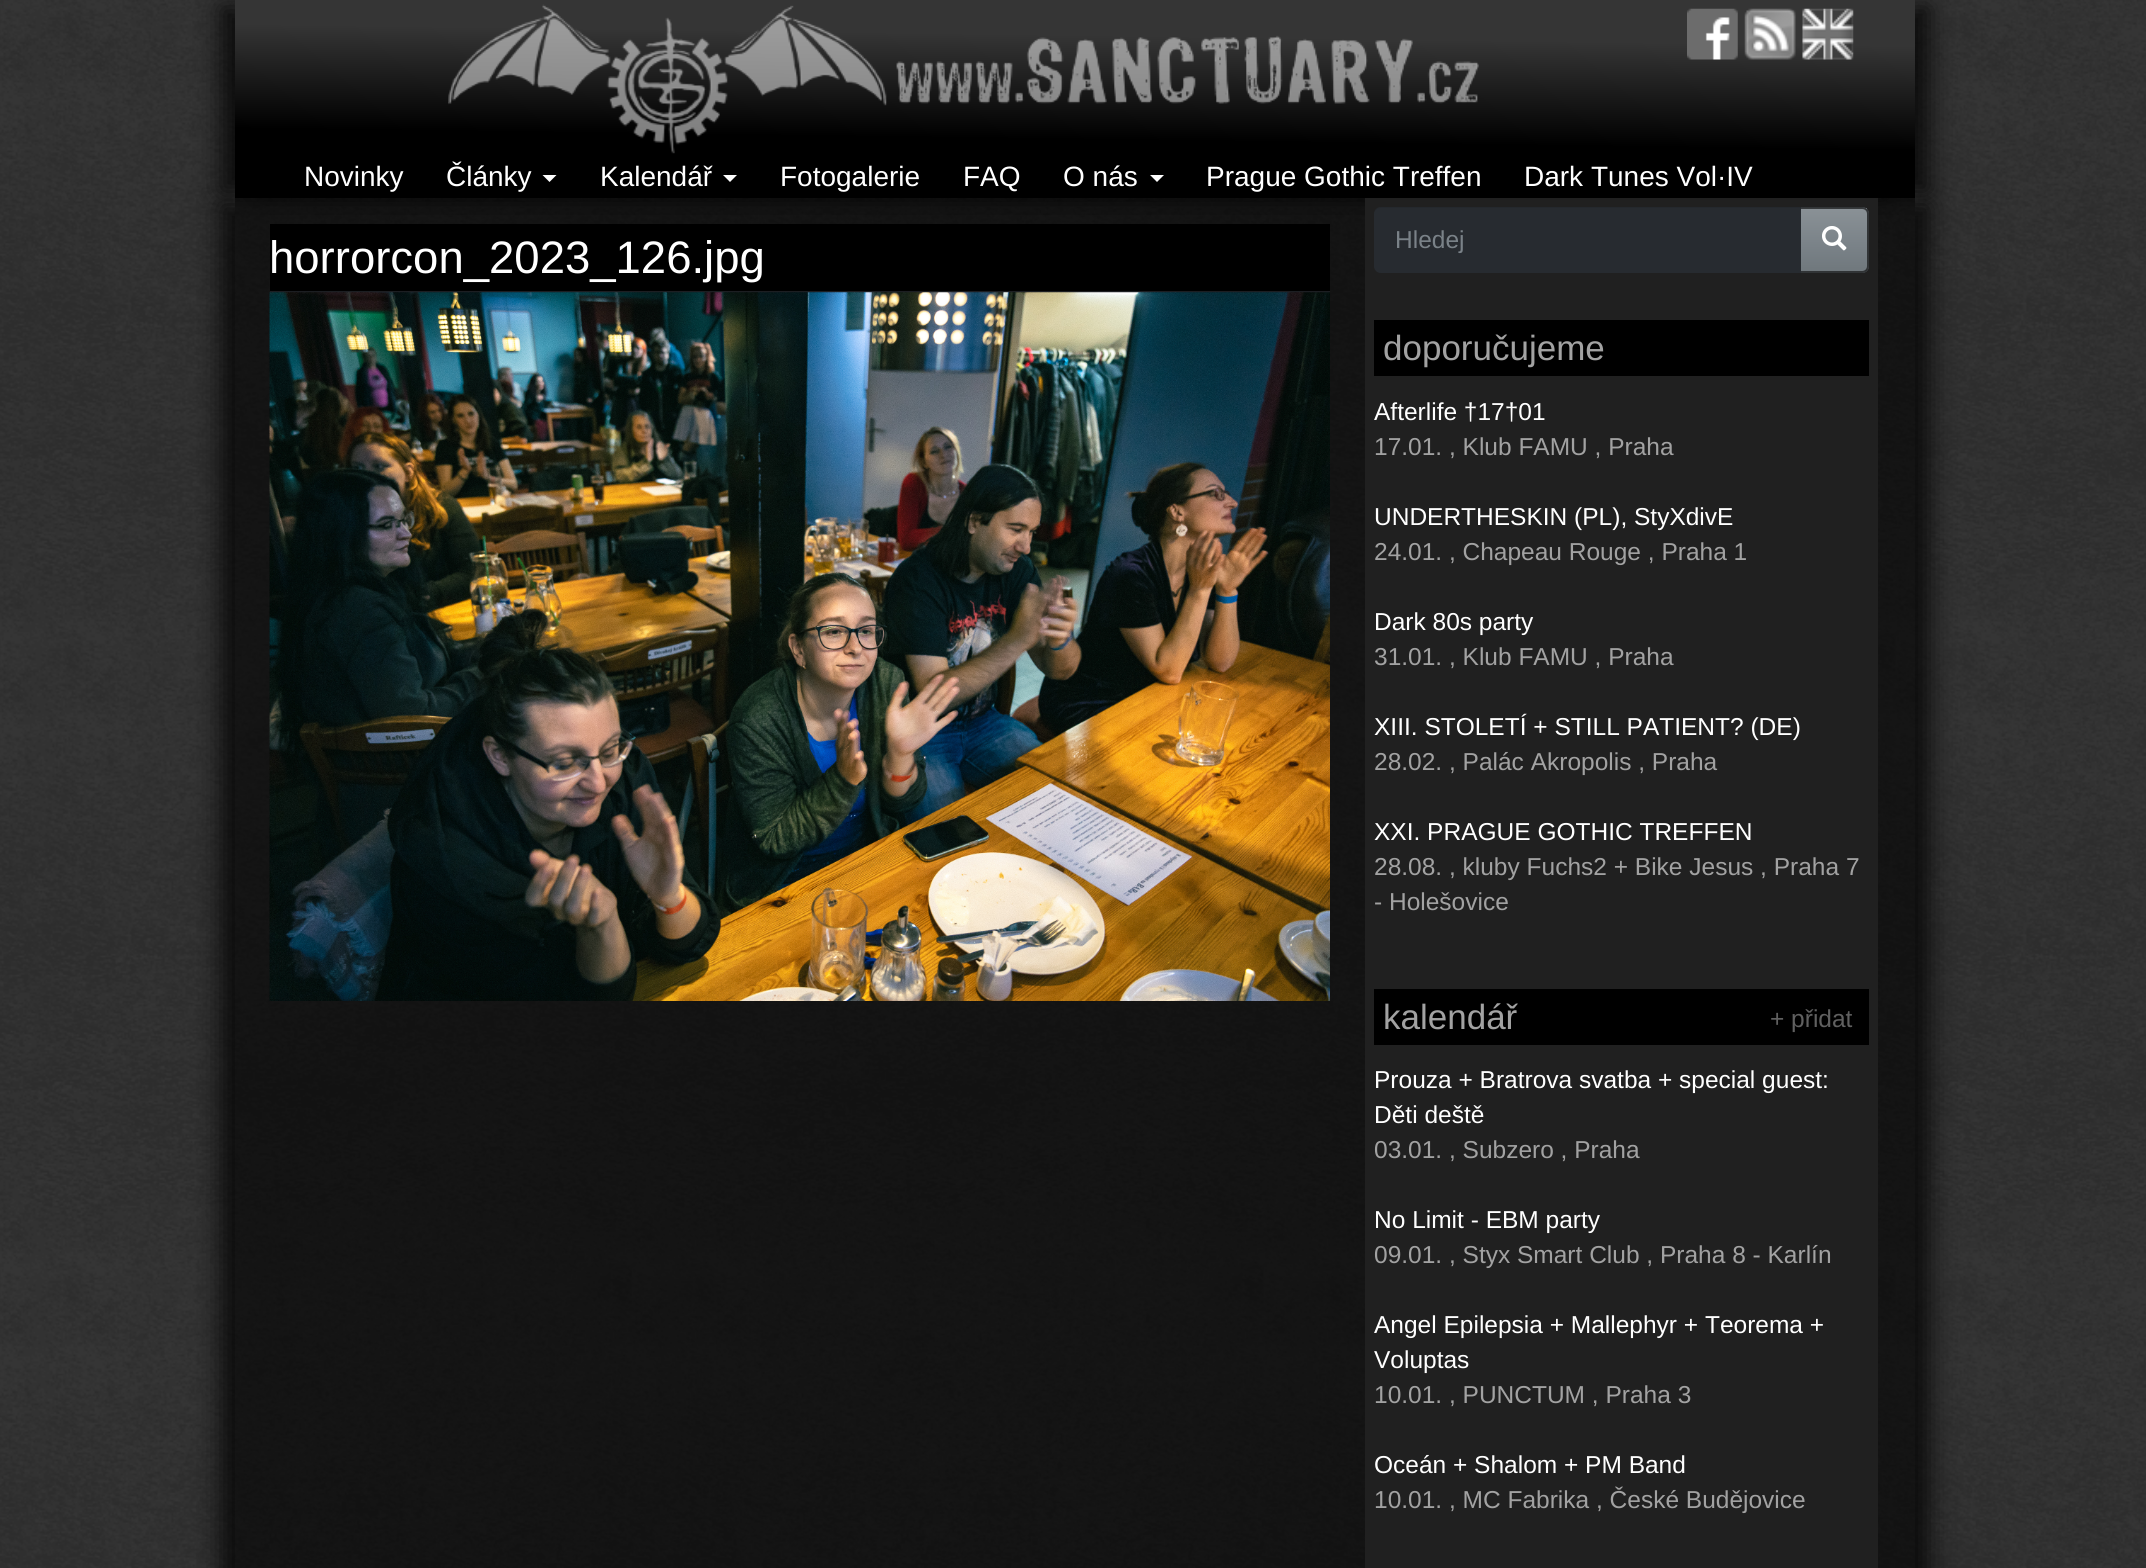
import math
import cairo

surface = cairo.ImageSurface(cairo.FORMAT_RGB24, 2146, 1568)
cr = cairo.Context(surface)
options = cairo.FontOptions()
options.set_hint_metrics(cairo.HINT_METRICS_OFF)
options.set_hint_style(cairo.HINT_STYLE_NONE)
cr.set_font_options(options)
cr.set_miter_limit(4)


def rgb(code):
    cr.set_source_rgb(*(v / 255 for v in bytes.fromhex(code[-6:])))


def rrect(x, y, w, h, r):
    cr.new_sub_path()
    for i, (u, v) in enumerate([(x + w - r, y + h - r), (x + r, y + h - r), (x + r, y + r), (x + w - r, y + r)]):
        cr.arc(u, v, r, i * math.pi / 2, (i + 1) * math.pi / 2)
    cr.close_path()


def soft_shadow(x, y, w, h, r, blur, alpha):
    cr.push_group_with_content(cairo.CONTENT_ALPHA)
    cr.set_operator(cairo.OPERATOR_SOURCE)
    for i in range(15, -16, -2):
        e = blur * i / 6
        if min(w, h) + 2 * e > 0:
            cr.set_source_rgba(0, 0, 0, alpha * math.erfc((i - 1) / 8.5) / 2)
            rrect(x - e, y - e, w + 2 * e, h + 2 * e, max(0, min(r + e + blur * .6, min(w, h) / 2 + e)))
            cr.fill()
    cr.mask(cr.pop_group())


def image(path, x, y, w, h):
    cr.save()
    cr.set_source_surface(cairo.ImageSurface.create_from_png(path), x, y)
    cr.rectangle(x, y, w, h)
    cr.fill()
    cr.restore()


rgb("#ffffff")
cr.paint()
image("img/1.png", 0, 0, 2146, 1568)
cr.save()
cr.rectangle(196, 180, 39, 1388)
cr.clip()
rgb("#000000")
soft_shadow(221, 205, 1666, 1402, 0, 13, 0.8)
cr.restore()
cr.save()
cr.set_fill_rule(cairo.FILL_RULE_EVEN_ODD)
cr.new_path()
cr.move_to(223, 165)
cr.line_to(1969, 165)
cr.line_to(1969, 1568)
cr.line_to(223, 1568)
cr.close_path()
cr.move_to(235, 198)
cr.line_to(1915, 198)
cr.line_to(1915, 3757)
cr.line_to(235, 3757)
cr.close_path()
cr.clip()
rgb("#000000")
soft_shadow(263, 205, 1666, 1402, 0, 13, 0.8)
cr.restore()
cr.set_source_rgba(0, 0, 0, 0.6)
cr.rectangle(235, 198, 1680, 1370)
cr.fill()
rgb("#000000")
soft_shadow(221, 7, 1666, 184, 0, 13, 0.8)
soft_shadow(263, 7, 1666, 184, 0, 13, 0.8)
gradient = cairo.LinearGradient(1076, -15, 1073, 212)
gradient.add_color_stop_rgba(0.22, 0.208, 0.208, 0.208, 1)
gradient.add_color_stop_rgba(0.68, 0, 0, 0, 1)
cr.set_source(gradient)
cr.rectangle(235, 0, 1680, 198)
cr.fill()
image("img/2.png", 448, 4, 1031, 150)
image("img/3.png", 1687, 8, 51, 52)
image("img/4.png", 1744, 8, 52, 52)
image("img/5.png", 1802, 8, 52, 52)
rgb("#ffffff")
cr.new_path()
cr.move_to(542.5, 175)
cr.line_to(556.5, 175)
cr.line_to(549.5, 182)
cr.close_path()
cr.fill()
cr.new_path()
cr.move_to(723, 175)
cr.line_to(737, 175)
cr.line_to(730, 182)
cr.close_path()
cr.fill()
cr.new_path()
cr.move_to(1150, 175)
cr.line_to(1164, 175)
cr.line_to(1157, 182)
cr.close_path()
cr.fill()
rgb("#000000")
cr.rectangle(270, 224, 1060, 67)
cr.fill()
rgb("#1c1e22")
cr.rectangle(270, 291, 1060, 2)
cr.fill()
image("img/6.png", 269, 292, 1061, 709)
rgb("#202020")
cr.rectangle(1365, 198, 513, 1370)
cr.fill()
rgb("#7a8288")
cr.new_path()
cr.move_to(1799, 207)
cr.line_to(1862, 207)
cr.curve_to(1866, 207, 1869, 210, 1869, 214)
cr.line_to(1869, 266)
cr.curve_to(1869, 270, 1866, 273, 1862, 273)
cr.line_to(1799, 273)
cr.close_path()
cr.fill()
gradient = cairo.LinearGradient(1834, 208, 1834, 271)
gradient.add_color_stop_rgba(0, 0.541, 0.569, 0.588, 1)
gradient.add_color_stop_rgba(0.6, 0.478, 0.51, 0.533, 1)
gradient.add_color_stop_rgba(1, 0.439, 0.471, 0.49, 1)
cr.set_source(gradient)
cr.rectangle(1801, 208, 66, 63)
cr.fill()
cr.new_path()
cr.move_to(1800, 208)
cr.line_to(1862, 208)
cr.curve_to(1865.5, 208, 1868, 210.5, 1868, 214)
cr.line_to(1868, 266)
cr.curve_to(1868, 269.5, 1865.5, 272, 1862, 272)
cr.line_to(1800, 272)
cr.close_path()
cr.set_source_rgba(0, 0, 0, 0.6)
cr.stroke()
rgb("#272b30")
cr.new_path()
cr.move_to(1381, 207)
cr.line_to(1801, 207)
cr.line_to(1801, 273)
cr.line_to(1381, 273)
cr.curve_to(1377, 273, 1374, 270, 1374, 266)
cr.line_to(1374, 214)
cr.curve_to(1374, 210, 1377, 207, 1381, 207)
cr.close_path()
cr.fill()
cr.set_source_rgba(0, 0, 0, 0.07)
cr.new_path()
cr.move_to(1381, 208)
cr.line_to(1801, 208)
cr.line_to(1801, 207)
cr.line_to(1381, 207)
cr.curve_to(1376, 207, 1374, 211, 1374, 215)
cr.curve_to(1374, 211, 1377, 208, 1381, 208)
cr.close_path()
cr.fill()
image("img/7.png", 1822, 226, 25, 25)
rgb("#000000")
cr.rectangle(1374, 320, 495, 56)
cr.fill()
cr.rectangle(1374, 989, 495, 56)
cr.fill()
cr.select_font_face("Liberation Sans")
cr.set_font_size(28)
rgb("#ffffff")
for x, y, s in [
    (304, 186, "Novinky"),
    (446, 186, "Články"),
    (600, 186, "Kalendář"),
    (780, 186, "Fotogalerie"),
    (963, 186, "FAQ"),
    (1063, 186, "O nás"),
    (1206, 186, "Prague Gothic Treffen"),
    (1524, 186, "Dark Tunes Vol·IV"),
]:
    cr.move_to(x, y)
    cr.show_text(s)
cr.set_font_size(45.5)
cr.move_to(269, 273)
cr.show_text("horrorcon_2023_126.jpg")
cr.set_font_size(24.5)
rgb("#7a8288")
cr.move_to(1395, 248)
cr.show_text("Hledej")
cr.set_font_size(35)
rgb("#a2a2a2")
cr.move_to(1383, 360)
cr.show_text("doporučujeme")
cr.set_font_size(24.5)
rgb("#ffffff")
cr.move_to(1374, 420)
cr.show_text("Afterlife †17†01")
rgb("#a2a2a2")
cr.move_to(1374, 455)
cr.show_text("17.01. , Klub FAMU , Praha")
rgb("#ffffff")
cr.move_to(1374, 525)
cr.show_text("UNDERTHESKIN (PL), StyXdivE")
rgb("#a2a2a2")
cr.move_to(1374, 560)
cr.show_text("24.01. , Chapeau Rouge , Praha 1")
rgb("#ffffff")
cr.move_to(1374, 630)
cr.show_text("Dark 80s party")
rgb("#a2a2a2")
cr.move_to(1374, 665)
cr.show_text("31.01. , Klub FAMU , Praha")
rgb("#ffffff")
cr.move_to(1374, 735)
cr.show_text("XIII. STOLETÍ + STILL PATIENT? (DE)")
rgb("#a2a2a2")
cr.move_to(1374, 770)
cr.show_text("28.02. , Palác Akropolis , Praha")
rgb("#ffffff")
cr.move_to(1374, 840)
cr.show_text("XXI. PRAGUE GOTHIC TREFFEN")
rgb("#a2a2a2")
cr.move_to(1374, 875)
cr.show_text("28.08. , kluby Fuchs2 + Bike Jesus , Praha 7")
cr.move_to(1374, 910)
cr.show_text("- Holešovice")
cr.set_font_size(35)
cr.move_to(1383, 1029)
cr.show_text("kalendář")
cr.set_font_size(24.5)
rgb("#606060")
cr.move_to(1770, 1027)
cr.show_text("+ přidat")
rgb("#ffffff")
cr.move_to(1374, 1088)
cr.show_text("Prouza + Bratrova svatba + special guest:")
cr.move_to(1374, 1123)
cr.show_text("Děti deště")
rgb("#a2a2a2")
cr.move_to(1374, 1158)
cr.show_text("03.01. , Subzero , Praha")
rgb("#ffffff")
cr.move_to(1374, 1228)
cr.show_text("No Limit - EBM party")
rgb("#a2a2a2")
cr.move_to(1374, 1263)
cr.show_text("09.01. , Styx Smart Club , Praha 8 - Karlín")
rgb("#ffffff")
cr.move_to(1374, 1333)
cr.show_text("Angel Epilepsia + Mallephyr + Teorema +")
cr.move_to(1374, 1368)
cr.show_text("Voluptas")
rgb("#a2a2a2")
cr.move_to(1374, 1403)
cr.show_text("10.01. , PUNCTUM , Praha 3")
rgb("#ffffff")
cr.move_to(1374, 1473)
cr.show_text("Oceán + Shalom + PM Band")
rgb("#a2a2a2")
cr.move_to(1374, 1508)
cr.show_text("10.01. , MC Fabrika , České Budějovice")
surface.write_to_png("page.png")
